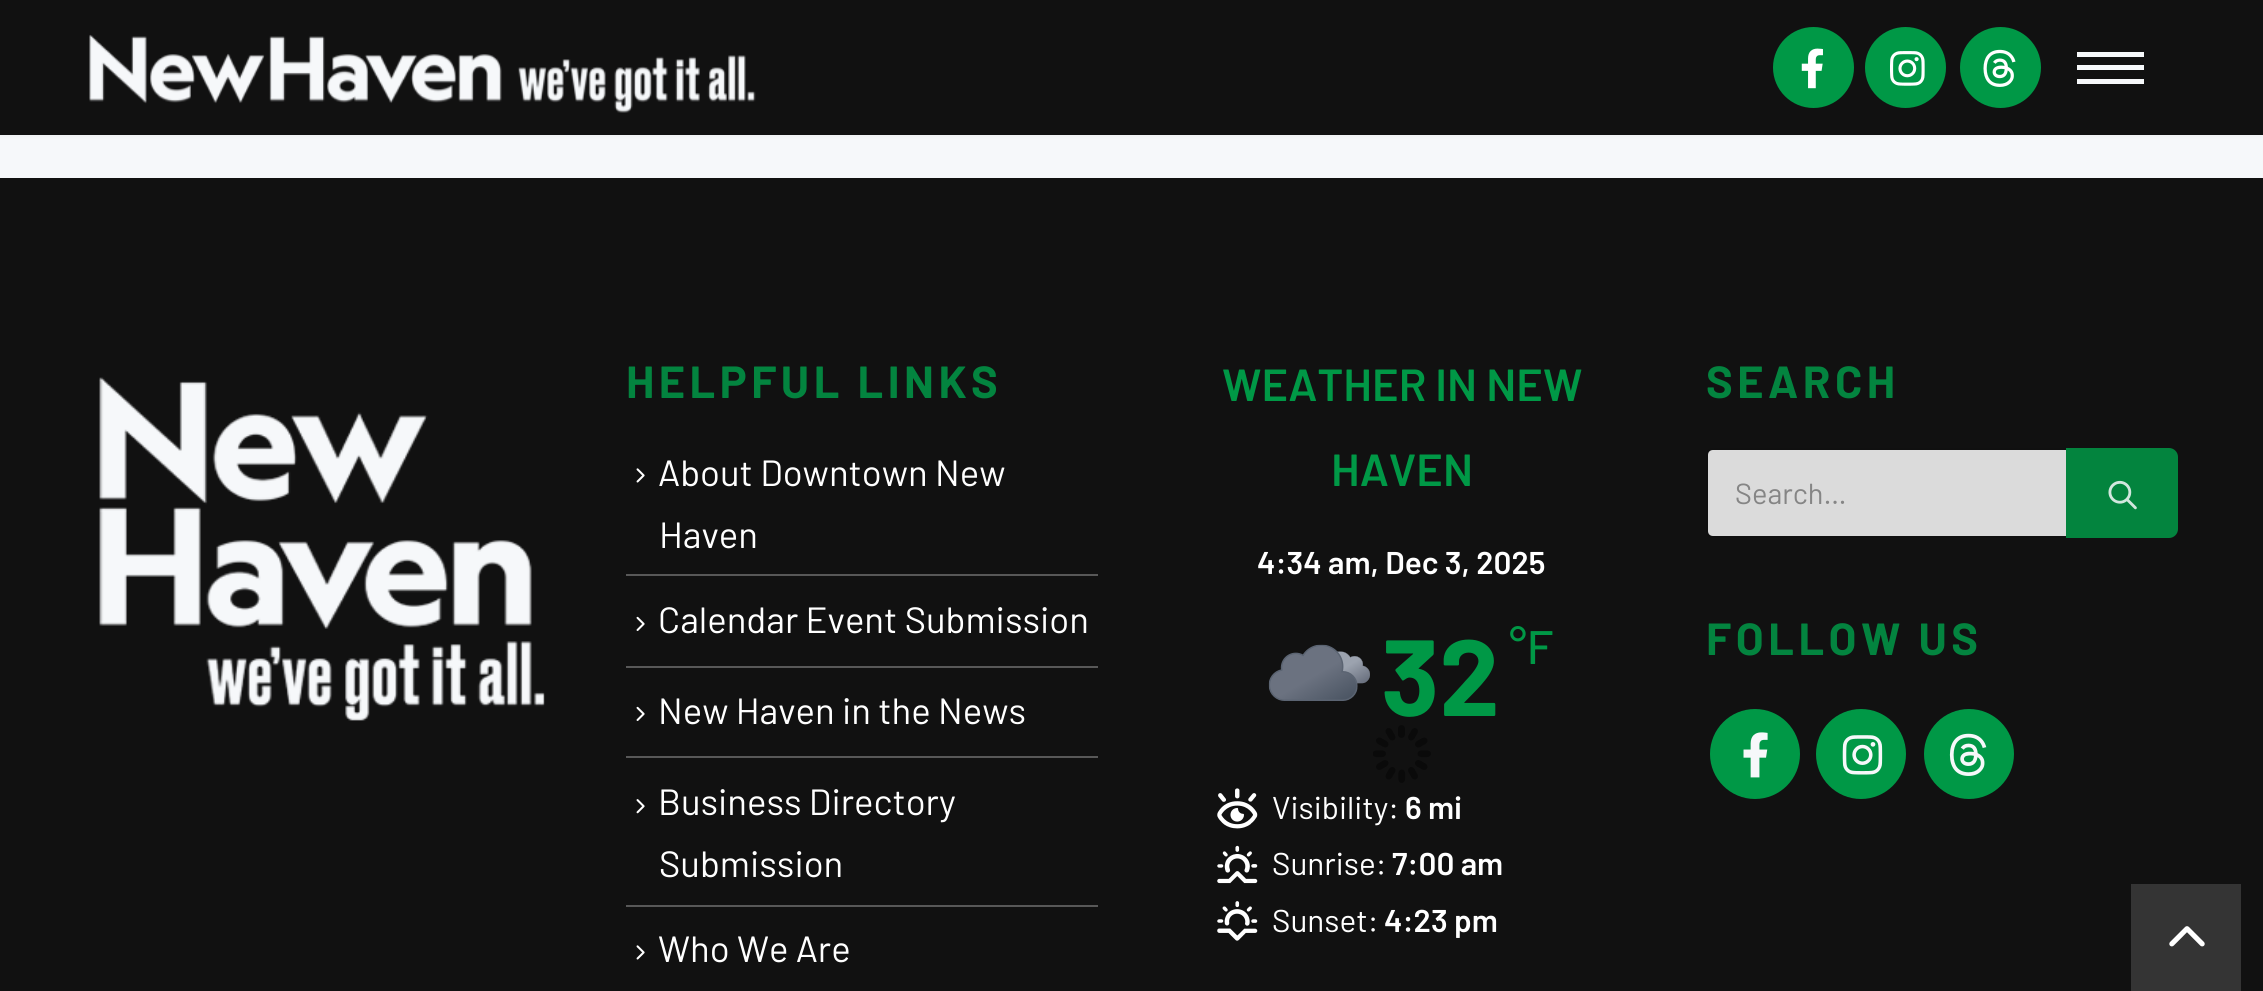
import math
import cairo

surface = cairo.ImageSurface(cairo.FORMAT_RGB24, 2263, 991)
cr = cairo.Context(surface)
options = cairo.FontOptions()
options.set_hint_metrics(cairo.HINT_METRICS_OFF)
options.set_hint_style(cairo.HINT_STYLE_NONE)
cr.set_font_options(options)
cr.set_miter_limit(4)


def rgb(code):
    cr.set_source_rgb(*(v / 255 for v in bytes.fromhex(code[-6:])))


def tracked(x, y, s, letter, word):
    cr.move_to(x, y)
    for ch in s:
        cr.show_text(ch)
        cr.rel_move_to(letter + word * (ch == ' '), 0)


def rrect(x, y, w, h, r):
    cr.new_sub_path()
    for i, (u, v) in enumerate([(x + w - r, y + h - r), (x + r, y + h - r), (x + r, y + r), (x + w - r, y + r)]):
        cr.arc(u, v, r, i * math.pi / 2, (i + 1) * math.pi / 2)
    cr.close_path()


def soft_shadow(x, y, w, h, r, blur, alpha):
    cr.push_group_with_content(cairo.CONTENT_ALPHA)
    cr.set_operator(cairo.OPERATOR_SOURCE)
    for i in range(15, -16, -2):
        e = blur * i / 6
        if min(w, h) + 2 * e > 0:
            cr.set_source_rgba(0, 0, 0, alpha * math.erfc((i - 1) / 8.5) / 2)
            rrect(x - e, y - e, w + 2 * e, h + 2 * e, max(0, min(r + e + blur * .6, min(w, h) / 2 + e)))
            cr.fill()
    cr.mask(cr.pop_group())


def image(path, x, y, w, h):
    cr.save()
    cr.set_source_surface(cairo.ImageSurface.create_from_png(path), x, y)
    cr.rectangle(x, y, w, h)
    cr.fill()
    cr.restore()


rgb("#f6f8fa")
cr.paint()
rgb("#000000")
soft_shadow(0, 0, 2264, 135, 0, 3.5, 0.06)
rgb("#111111")
cr.rectangle(0, 0, 2263, 135)
cr.fill()
image("img/1.png", 89, 34, 667, 79)
rgb("#009846")
cr.arc(1813.5, 67.5, 40.5, 0, 2 * math.pi)
cr.fill()
image("img/2.png", 1801, 48, 22, 41)
cr.arc(1905.5, 67.5, 40.5, 0, 2 * math.pi)
cr.fill()
image("img/3.png", 1890, 51, 35, 35)
cr.arc(2000.5, 67.5, 40.5, 0, 2 * math.pi)
cr.fill()
image("img/4.png", 1983, 49, 33, 38)
for x, y, w, h, color in [
    (2077, 52, 67, 5, "#f6f8fa"),
    (2077, 65, 67, 5, "#f6f8fa"),
    (2077, 79, 67, 5, "#f6f8fa"),
    (0, 178, 2263, 813, "#111111"),
]:
    rgb(color)
    cr.rectangle(x, y, w, h)
    cr.fill()
image("img/5.png", 99, 377, 446, 344)
image("img/6.png", 636, 468, 9, 15)
rgb("#585858")
cr.rectangle(626, 574, 472, 2)
cr.fill()
image("img/7.png", 636, 616, 9, 15)
cr.rectangle(626, 666, 472, 2)
cr.fill()
image("img/7.png", 636, 706, 9, 15)
cr.rectangle(626, 756, 472, 2)
cr.fill()
image("img/8.png", 636, 799, 9, 15)
cr.rectangle(626, 905, 472, 2)
cr.fill()
image("img/6.png", 636, 945, 9, 15)
image("img/9.png", 1268, 644, 102, 57)
image("img/10.png", 1217, 788, 41, 41)
image("img/11.png", 1217, 845, 41, 39)
image("img/12.png", 1217, 901, 41, 40)
image("img/13.png", 1373, 725, 58, 58)
rgb("#dbdbdb")
cr.new_path()
cr.move_to(1713, 450)
cr.line_to(2066, 450)
cr.line_to(2066, 536)
cr.line_to(1713, 536)
cr.curve_to(1710, 536, 1708, 534, 1708, 531)
cr.line_to(1708, 455)
cr.curve_to(1708, 452, 1710, 450, 1713, 450)
cr.close_path()
cr.fill()
cr.new_path()
cr.move_to(1713, 449)
cr.line_to(2067, 449)
cr.line_to(2067, 537)
cr.line_to(1713, 537)
cr.curve_to(1709.5, 537, 1707, 534.5, 1707, 531)
cr.line_to(1707, 455)
cr.curve_to(1707, 451.5, 1709.5, 449, 1713, 449)
cr.close_path()
cr.set_source_rgba(0.012, 0.012, 0.012, 0.08)
cr.stroke()
rgb("#03843e")
cr.new_path()
cr.move_to(2069.5, 451.5)
cr.line_to(2169, 451.5)
cr.curve_to(2172, 451.5, 2174.5, 454, 2174.5, 457)
cr.line_to(2174.5, 529)
cr.curve_to(2174.5, 532, 2172, 534.5, 2169, 534.5)
cr.line_to(2069.5, 534.5)
cr.close_path()
cr.fill_preserve()
cr.set_line_width(7)
cr.stroke()
image("img/14.png", 2108, 480, 29, 30)
rgb("#009846")
cr.arc(1755, 754, 45, 0, 2 * math.pi)
cr.fill()
image("img/15.png", 1743, 732, 25, 46)
cr.arc(1861, 754, 45, 0, 2 * math.pi)
cr.fill()
image("img/16.png", 1842, 735, 41, 40)
cr.arc(1969, 754, 45, 0, 2 * math.pi)
cr.fill()
image("img/17.png", 1949, 733, 38, 43)
rgb("#343434")
cr.rectangle(2131, 884, 110, 107)
cr.fill()
image("img/18.png", 2169, 926, 36, 21)
cr.select_font_face("Barlow", cairo.FONT_SLANT_NORMAL, cairo.FONT_WEIGHT_BOLD)
cr.set_font_size(45)
rgb("#03843f")
tracked(626, 398, "HELPFUL LINKS", 4.5, 0)
cr.select_font_face("Barlow")
cr.set_font_size(36.5)
rgb("#ffffff")
for x, y, s in [
    (658, 486, "About Downtown New"),
    (659, 548, "Haven"),
    (658, 633, "Calendar Event Submission"),
    (658, 724, "New Haven in the News"),
    (658, 815, "Business Directory"),
    (659, 877, "Submission"),
    (658, 962, "Who We Are"),
]:
    cr.move_to(x, y)
    cr.show_text(s)
cr.select_font_face("Barlow SemiBold")
cr.set_font_size(45)
rgb("#009846")
cr.move_to(1222, 401)
cr.show_text("WEATHER IN NEW")
cr.move_to(1331, 486)
cr.show_text("HAVEN")
cr.set_font_size(31.5)
rgb("#ffffff")
cr.move_to(1257, 574)
cr.show_text("4:34 am, Dec 3, 2025")
cr.select_font_face("Barlow", cairo.FONT_SLANT_NORMAL, cairo.FONT_WEIGHT_BOLD)
cr.set_font_size(108)
rgb("#009846")
cr.move_to(1381, 716)
cr.show_text("32")
cr.select_font_face("Barlow Medium")
cr.set_font_size(47)
cr.move_to(1509, 664)
cr.show_text("°F")
cr.select_font_face("Barlow")
cr.set_font_size(31.5)
rgb("#ffffff")
cr.move_to(1272, 819)
cr.show_text("Visibility:")
cr.select_font_face("Barlow SemiBold")
cr.move_to(1405, 819)
cr.show_text("6 mi")
cr.select_font_face("Barlow")
cr.move_to(1272, 875)
cr.show_text("Sunrise:")
cr.select_font_face("Barlow SemiBold")
cr.move_to(1392, 875)
cr.show_text("7:00 am")
cr.select_font_face("Barlow")
cr.move_to(1272, 932)
cr.show_text("Sunset:")
cr.select_font_face("Barlow SemiBold")
cr.move_to(1384, 932)
cr.show_text("4:23 pm")
cr.select_font_face("Barlow", cairo.FONT_SLANT_NORMAL, cairo.FONT_WEIGHT_BOLD)
cr.set_font_size(45)
rgb("#03843f")
tracked(1706, 398, "SEARCH", 4.5, 0)
cr.select_font_face("Barlow")
cr.set_font_size(29)
rgb("#858585")
cr.move_to(1735, 504)
cr.show_text("Search…")
cr.select_font_face("Barlow", cairo.FONT_SLANT_NORMAL, cairo.FONT_WEIGHT_BOLD)
cr.set_font_size(45)
rgb("#03843f")
tracked(1706, 655, "FOLLOW US", 4.5, 0)
surface.write_to_png("page.png")
